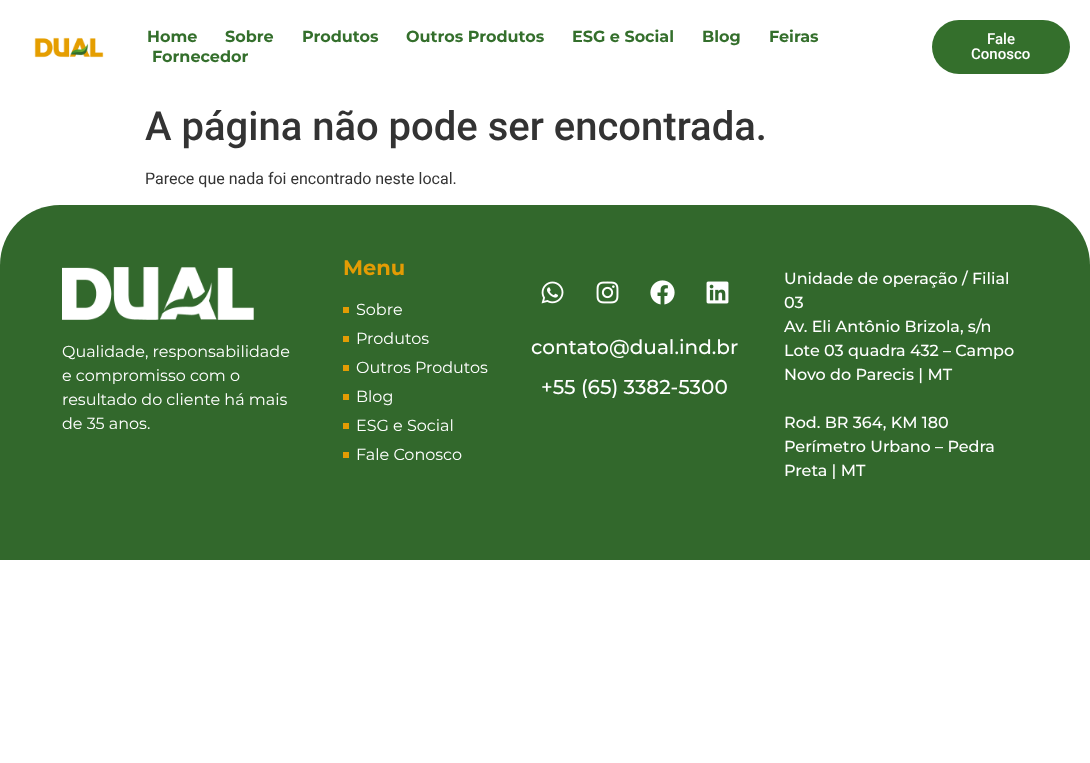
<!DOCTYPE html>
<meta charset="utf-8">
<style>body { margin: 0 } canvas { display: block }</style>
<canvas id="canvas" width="1090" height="763"></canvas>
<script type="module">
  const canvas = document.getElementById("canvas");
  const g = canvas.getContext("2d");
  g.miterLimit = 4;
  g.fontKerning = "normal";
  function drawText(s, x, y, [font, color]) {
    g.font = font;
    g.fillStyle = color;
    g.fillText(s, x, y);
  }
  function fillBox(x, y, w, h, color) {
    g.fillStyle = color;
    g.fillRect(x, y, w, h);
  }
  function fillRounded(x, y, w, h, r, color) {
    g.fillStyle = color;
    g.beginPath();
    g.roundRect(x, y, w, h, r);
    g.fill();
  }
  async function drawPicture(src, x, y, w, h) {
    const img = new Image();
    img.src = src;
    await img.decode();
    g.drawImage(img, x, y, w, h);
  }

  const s1 = ["bold 16px Montserrat", "#346F2C"];
  const s2 = ["500 15px Roboto", "#FFFFFF"];
  const s3 = ["500 40px Roboto", "#333333"];
  const s4 = ["16px Roboto", "#333333"];
  const s5 = ["16px Montserrat", "#FFFFFF"];
  const s6 = ["bold 21px Montserrat", "#E39C04"];
  const s7 = ["500 20px Montserrat", "#FFFFFF"];
  const s8 = ["500 16px Montserrat", "#FFFFFF"];

  fillBox(0, 0, 1090, 763, "#FFFFFF");
  await drawPicture("pic1.png", 34, 37, 70, 21);
  drawText("Home", 147, 42, s1);
  drawText("Sobre", 225, 42, s1);
  drawText("Produtos", 302, 42, s1);
  drawText("Outros Produtos", 406, 42, s1);
  drawText("ESG e Social", 572, 42, s1);
  drawText("Blog", 702, 42, s1);
  drawText("Feiras", 769, 42, s1);
  drawText("Fornecedor", 152, 62, s1);
  fillRounded(932, 20, 138, 54, 27, "#346F2C");
  drawText("Fale", 987, 44, s2);
  drawText("Conosco", 971, 59, s2);
  drawText("A página não pode ser encontrada.", 145, 140, s3);
  drawText("Parece que nada foi encontrado neste local.", 145, 184, s4);
  g.fillStyle = "#32682C";
  g.beginPath();
  g.roundRect(0, 205, 1090, 355, [60, 60, 0, 0]);
  g.fill();
  await drawPicture("pic2.png", 62, 267, 192, 53);
  drawText("Qualidade, responsabilidade", 62, 357, s5);
  drawText("e compromisso com o", 62, 381, s5);
  drawText("resultado do cliente há mais", 62, 405, s5);
  drawText("de 35 anos.", 62, 429, s5);
  drawText("Menu", 343, 275, s6);
  fillBox(343, 307, 6, 6, "#E39C04");
  drawText("Sobre", 356, 315, s5);
  fillBox(343, 336, 6, 6, "#E39C04");
  drawText("Produtos", 356, 344, s5);
  fillBox(343, 365, 6, 6, "#E39C04");
  drawText("Outros Produtos", 356, 373, s5);
  fillBox(343, 394, 6, 6, "#E39C04");
  drawText("Blog", 356, 402, s5);
  fillBox(343, 423, 6, 6, "#E39C04");
  drawText("ESG e Social", 356, 431, s5);
  fillBox(343, 452, 6, 6, "#E39C04");
  drawText("Fale Conosco", 356, 460, s5);
  await drawPicture("pic3.png", 541, 281, 23, 23);
  await drawPicture("pic4.png", 596, 281, 23, 23);
  await drawPicture("pic5.png", 650, 280, 25, 25);
  await drawPicture("pic6.png", 706, 281, 23, 23);
  drawText("contato@dual.ind.br", 531, 354, s7);
  drawText("+55 (65) 3382-5300", 541, 394, s7);
  drawText("Unidade de operação / Filial", 784, 284, s8);
  drawText("03", 784, 308, s8);
  drawText("Av. Eli Antônio Brizola, s/n", 784, 332, s8);
  drawText("Lote 03 quadra 432 – Campo", 784, 356, s8);
  drawText("Novo do Parecis | MT", 784, 380, s8);
  drawText("Rod. BR 364, KM 180", 784, 428, s8);
  drawText("Perímetro Urbano – Pedra", 784, 452, s8);
  drawText("Preta | MT", 784, 476, s8);
</script>
